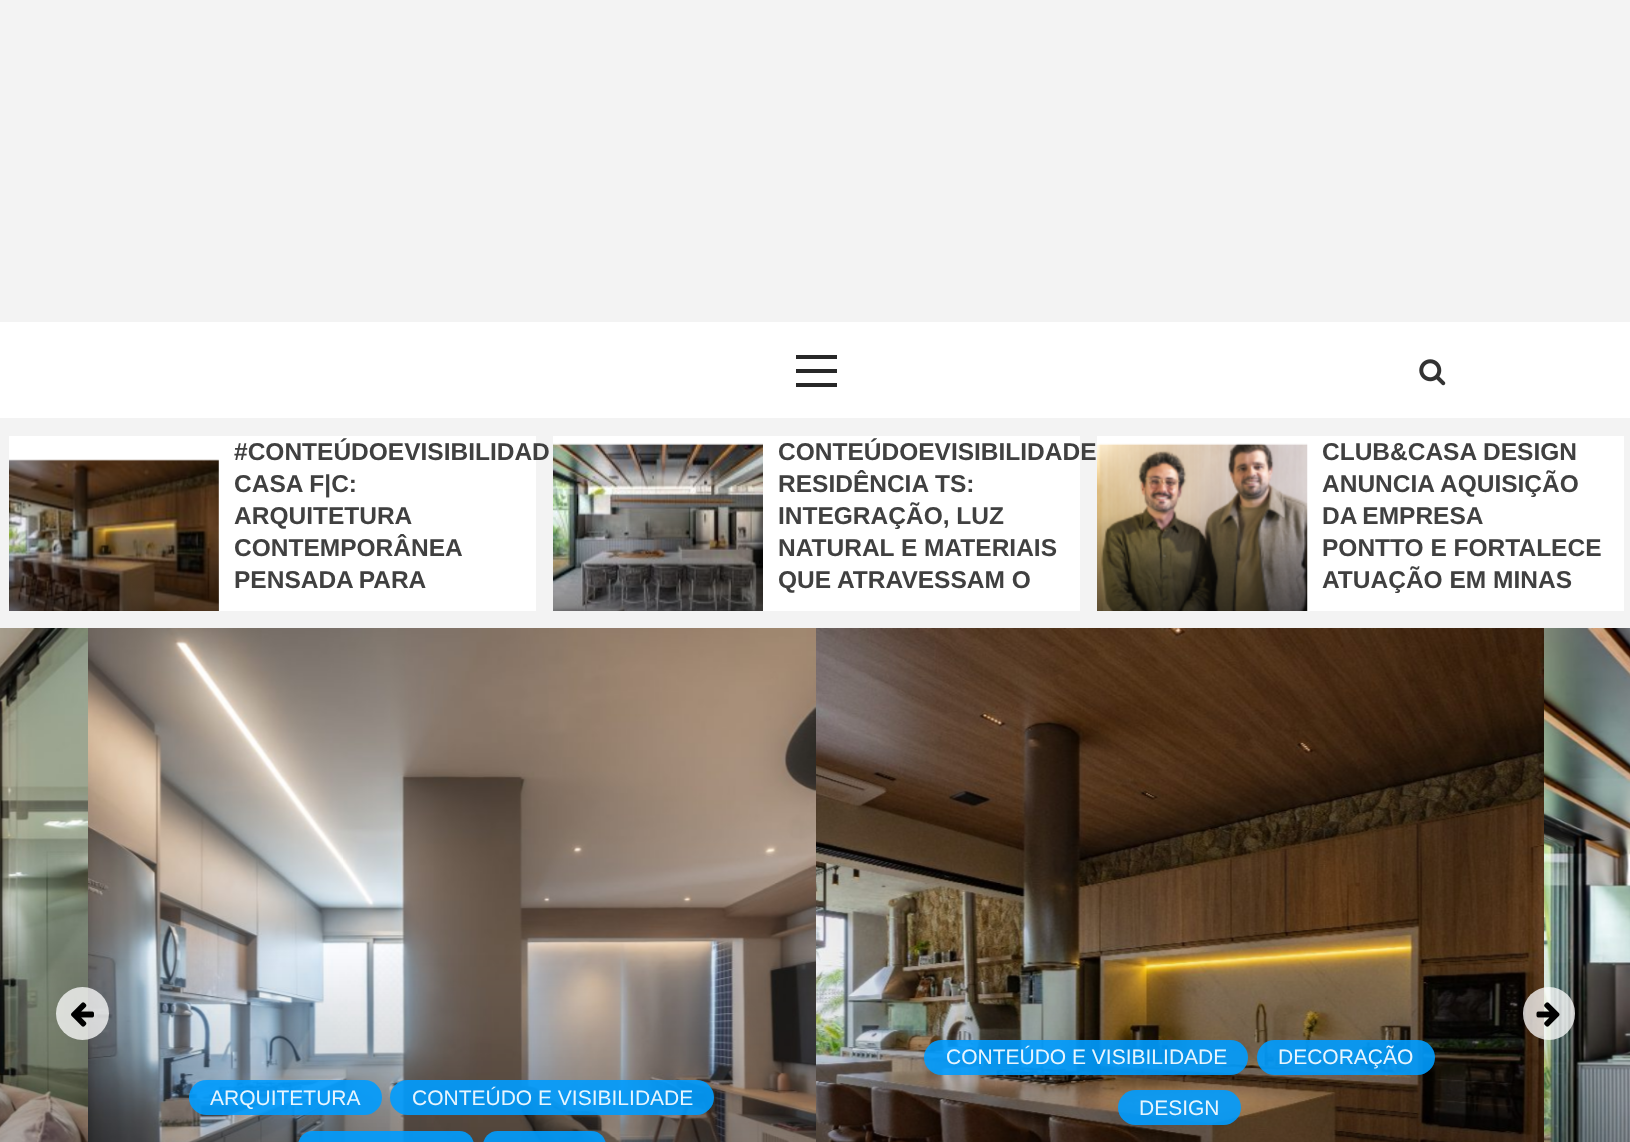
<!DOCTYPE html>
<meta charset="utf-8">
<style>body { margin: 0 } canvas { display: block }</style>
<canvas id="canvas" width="1630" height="1142"></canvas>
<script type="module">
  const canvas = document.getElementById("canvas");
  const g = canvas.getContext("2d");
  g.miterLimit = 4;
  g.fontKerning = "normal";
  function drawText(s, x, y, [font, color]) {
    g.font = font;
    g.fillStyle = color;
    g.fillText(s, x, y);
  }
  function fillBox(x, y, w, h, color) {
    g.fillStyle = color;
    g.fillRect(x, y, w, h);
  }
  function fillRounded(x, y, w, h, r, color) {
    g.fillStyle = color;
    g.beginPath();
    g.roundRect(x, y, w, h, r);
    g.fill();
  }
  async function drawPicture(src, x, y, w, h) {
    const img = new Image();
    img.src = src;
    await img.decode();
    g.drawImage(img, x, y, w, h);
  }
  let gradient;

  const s1 = ["bold 24.5px Liberation Sans", "#404040"];
  const s2 = ["21px Liberation Sans", "#E7F5FE"];

  fillBox(0, 0, 1630, 1142, "#F3F3F3");
  fillBox(0, 322, 1630, 96, "#FFFFFF");
  fillBox(796, 369, 41, 4, "#282828");
  fillBox(796, 355, 41, 4, "#282828");
  fillBox(796, 383, 41, 4, "#282828");
  await drawPicture("pic1.png", 1419, 359, 27, 27);
  fillBox(9, 436, 527, 175, "#FFFFFF");
  fillBox(9, 460, 210, 151, "#D7D7D7");
  await drawPicture("pic2.png", 9, 459, 210, 152);
  gradient = g.createLinearGradient(114, 460, 114, 635);
  gradient.addColorStop(0.4, "rgba(0, 0, 0, 0)");
  gradient.addColorStop(1, "rgba(0, 0, 0, 0.52)");
  g.fillStyle = gradient;
  g.fillRect(9, 534, 210, 77);
  drawText("#CONTEÚDOEVISIBILIDAD", 234, 460, s1);
  drawText("CASA F|C:", 234, 492, s1);
  drawText("ARQUITETURA", 234, 524, s1);
  drawText("CONTEMPORÂNEA", 234, 556, s1);
  g.wordSpacing = "-1px";
  drawText("PENSADA PARA", 234, 588, s1);
  fillBox(553, 436, 527, 175, "#FFFFFF");
  await drawPicture("pic3.png", 553, 443, 210, 168);
  g.wordSpacing = "0px";
  drawText("CONTEÚDOEVISIBILIDADE", 778, 460, s1);
  drawText("RESIDÊNCIA TS:", 778, 492, s1);
  drawText("INTEGRAÇÃO, LUZ", 778, 524, s1);
  drawText("NATURAL E MATERIAIS", 778, 556, s1);
  drawText("QUE ATRAVESSAM O", 778, 588, s1);
  fillBox(1097, 436, 527, 175, "#FFFFFF");
  await drawPicture("pic4.png", 1097, 443, 211, 168);
  drawText("CLUB&CASA DESIGN", 1322, 460, s1);
  drawText("ANUNCIA AQUISIÇÃO", 1322, 492, s1);
  g.wordSpacing = "-1px";
  drawText("DA EMPRESA", 1322, 524, s1);
  g.wordSpacing = "0px";
  drawText("PONTTO E FORTALECE", 1322, 556, s1);
  drawText("ATUAÇÃO EM MINAS", 1322, 588, s1);
  await drawPicture("pic7.png", 0, 628, 88, 514);
  await drawPicture("pic8.png", 88, 628, 728, 514);
  g.fillStyle = "rgba(255, 255, 255, 0.75)";
  g.beginPath();
  g.arc(82.5, 1013.5, 26.5, 0, Math.PI * 2);
  g.fill();
  await drawPicture("pic5.png", 71, 1002, 23, 25);
  await drawPicture("pic9.png", 816, 628, 728, 514);
  await drawPicture("pic10.png", 1544, 628, 86, 514);
  fillRounded(1523, 987, 52, 53, 26, "rgba(255, 255, 255, 0.75)");
  await drawPicture("pic6.png", 1536, 1002, 24, 25);
  fillRounded(189, 1080, 193, 35, 17.5, "rgba(0, 156, 255, 0.9)");
  drawText("ARQUITETURA", 210, 1105, s2);
  fillRounded(390, 1080, 324, 35, 17.5, "rgba(0, 156, 255, 0.9)");
  drawText("CONTEÚDO E VISIBILIDADE", 412, 1105, s2);
  fillRounded(298, 1131, 176, 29, 17.5, "rgba(0, 156, 255, 0.9)");
  fillRounded(483, 1131, 123, 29, 17.5, "rgba(0, 156, 255, 0.9)");
  fillRounded(924, 1040, 324, 35, 17.5, "rgba(0, 156, 255, 0.9)");
  drawText("CONTEÚDO E VISIBILIDADE", 946, 1064, s2);
  fillRounded(1257, 1040, 178, 35, 17.5, "rgba(0, 156, 255, 0.9)");
  drawText("DECORAÇÃO", 1278, 1064, s2);
  fillRounded(1118, 1090, 123, 35, 17.5, "rgba(0, 156, 255, 0.9)");
  drawText("DESIGN", 1139, 1115, s2);
</script>
